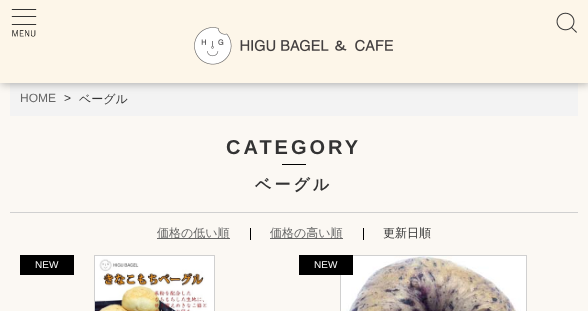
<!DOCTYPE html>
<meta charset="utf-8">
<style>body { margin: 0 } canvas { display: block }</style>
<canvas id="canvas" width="588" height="311"></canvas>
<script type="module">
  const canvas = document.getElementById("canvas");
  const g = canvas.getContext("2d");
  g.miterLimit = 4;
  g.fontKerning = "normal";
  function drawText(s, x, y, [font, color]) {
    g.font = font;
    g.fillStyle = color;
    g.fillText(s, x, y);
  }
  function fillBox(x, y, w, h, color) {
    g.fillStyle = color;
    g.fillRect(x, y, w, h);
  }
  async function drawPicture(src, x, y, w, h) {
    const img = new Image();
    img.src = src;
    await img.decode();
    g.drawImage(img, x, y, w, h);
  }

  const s1 = ["12px Liberation Sans", "#666666"];
  const s2 = ["12px Liberation Sans", "#333333"];
  const s3 = ["500 12px WenQuanYi Zen Hei", "#333333"];
  const s4 = ["bold 20px Liberation Sans", "#333333"];
  const s5 = ["bold 16px WenQuanYi Zen Hei", "#333333"];
  const s6 = ["500 12px WenQuanYi Zen Hei", "#666666"];
  const s7 = ["10px Liberation Sans", "#FCFCFC"];

  fillBox(0, 0, 588, 311, "#FBF8F3");
  fillBox(10, 83, 568, 33, "#F3F3F3");
  g.fillStyle = "rgba(0, 0, 0, 0.3)";
  g.filter = "blur(4px)";
  g.beginPath();
  g.rect(1, 1, 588, 83);
  g.fill();
  g.filter = "none";
  fillBox(0, 0, 588, 83, "#FDF6E9");
  await drawPicture("pic1.png", 11, 9, 26, 28);
  await drawPicture("pic2.png", 556, 12, 21, 21);
  await drawPicture("pic3.png", 194, 27, 199, 38);
  drawText("HOME", 20, 102, s1);
  drawText(">", 64, 102, s2);
  drawText("ベーグル", 79, 103, s3);
  g.letterSpacing = "3px";
  drawText("CATEGORY", 226, 154, s4);
  fillBox(282, 164, 24, 1, "#000000");
  drawText("ベーグル", 255, 190, s5);
  fillBox(10, 212, 568, 1, "#D0D0D0");
  fillBox(157, 238, 73, 1, "#666666");
  g.letterSpacing = "0px";
  drawText("価格の低い順", 157, 237, s6);
  fillBox(250, 228, 1, 12, "#000000");
  fillBox(270, 238, 73, 1, "#666666");
  drawText("価格の高い順", 270, 237, s6);
  fillBox(363, 228, 1, 12, "#000000");
  drawText("更新日順", 383, 237, s3);
  fillBox(20, 255, 54, 20, "#000000");
  drawText("NEW", 35, 268, s7);
  g.strokeStyle = "#D0D0D0";
  g.strokeRect(94.5, 255.5, 120, 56);
  await drawPicture("pic4.png", 95, 256, 119, 55);
  g.strokeRect(340.5, 255.5, 186, 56);
  await drawPicture("pic5.png", 341, 256, 185, 55);
  fillBox(299, 255, 54, 20, "#000000");
  drawText("NEW", 314, 268, s7);
</script>
